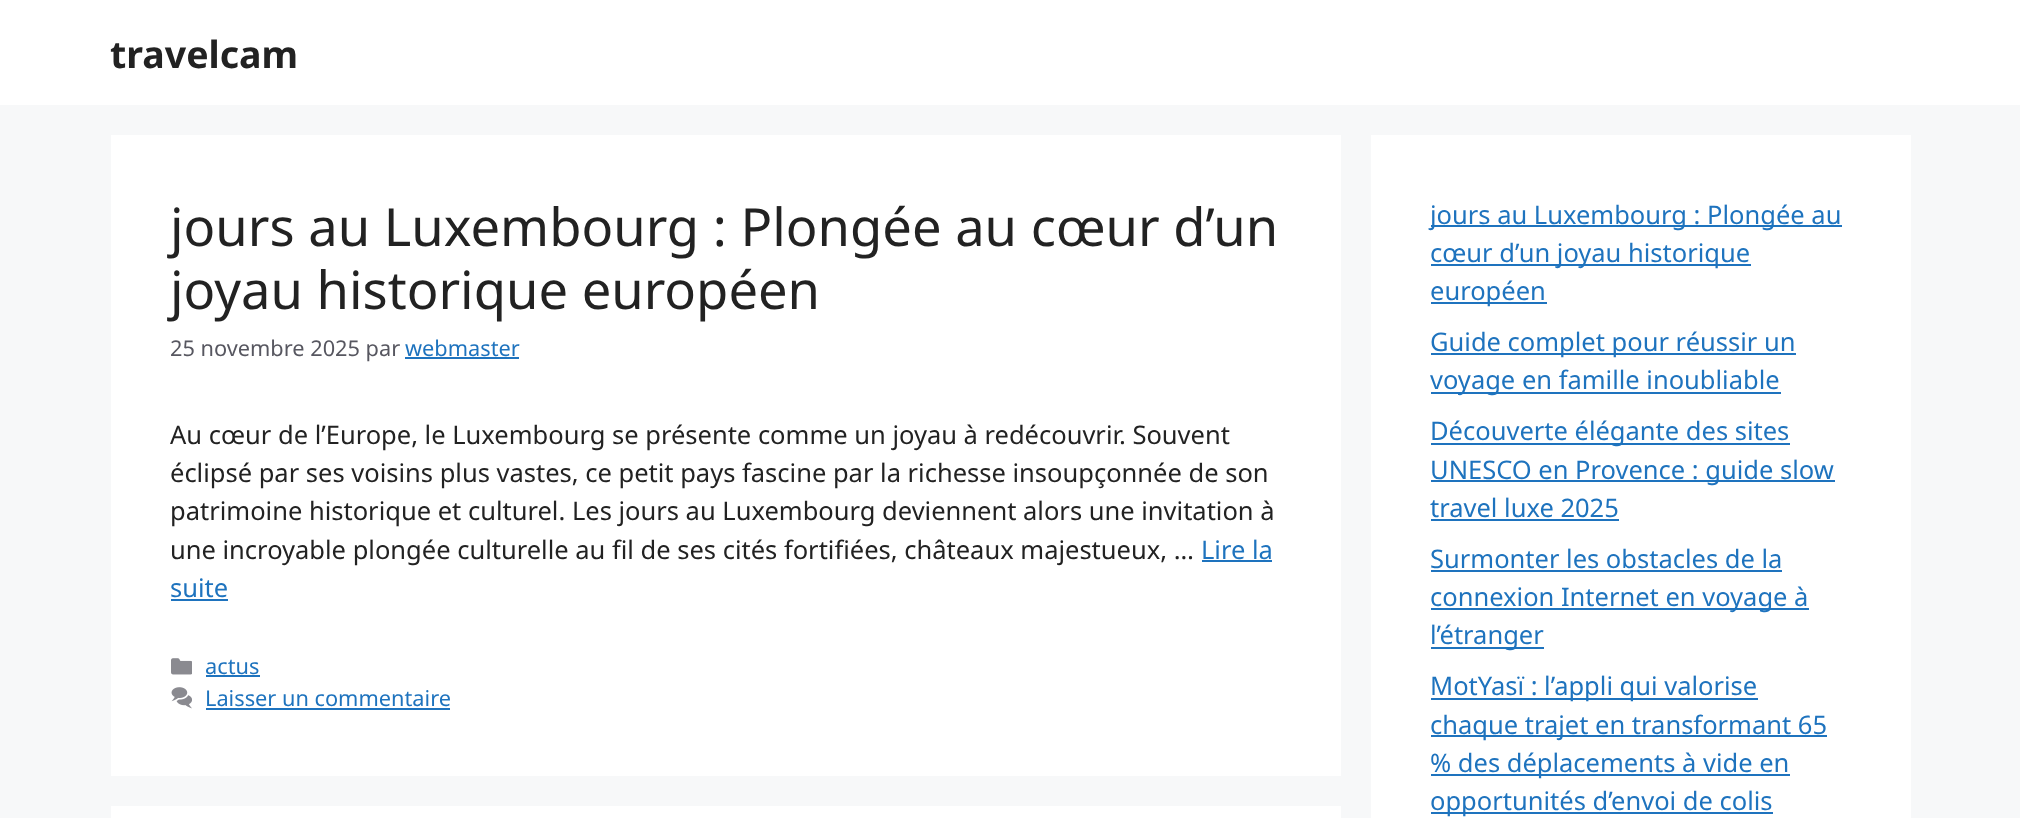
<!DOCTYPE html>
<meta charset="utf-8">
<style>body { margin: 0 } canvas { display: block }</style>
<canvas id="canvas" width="2020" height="818"></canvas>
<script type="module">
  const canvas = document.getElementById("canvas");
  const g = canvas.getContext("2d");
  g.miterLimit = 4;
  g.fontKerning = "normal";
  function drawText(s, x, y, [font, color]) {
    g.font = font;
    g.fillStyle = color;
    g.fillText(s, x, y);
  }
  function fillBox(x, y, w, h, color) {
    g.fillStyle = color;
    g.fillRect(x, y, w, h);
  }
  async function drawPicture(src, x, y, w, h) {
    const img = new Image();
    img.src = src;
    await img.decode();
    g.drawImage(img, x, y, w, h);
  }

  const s1 = ["bold 37.5px Noto Sans", "#222222"];
  const s2 = ["52.5px Noto Sans", "#222222"];
  const s3 = ["21.75px Noto Sans", "#575760"];
  const s4 = ["21.75px Noto Sans", "#1E73BE"];
  const s5 = ["25.5px Noto Sans", "#222222"];
  const s6 = ["25.5px Noto Sans", "#1E73BE"];

  fillBox(0, 0, 2020, 818, "#F7F8F9");
  fillBox(0, 0, 2020, 105, "#FFFFFF");
  drawText("travelcam", 110, 68, s1);
  fillBox(111, 135, 1230, 641, "#FFFFFF");
  drawText("jours au Luxembourg : Plongée au cœur d’un", 170, 246, s2);
  drawText("joyau historique européen", 170, 309, s2);
  drawText("25 novembre 2025 par", 170, 356, s3);
  drawText("webmaster", 405, 356, s4);
  fillBox(405, 357, 114, 2, "#1E73BE");
  drawText("Au cœur de l’Europe, le Luxembourg se présente comme un joyau à redécouvrir. Souvent", 170, 444, s5);
  drawText("éclipsé par ses voisins plus vastes, ce petit pays fascine par la richesse insoupçonnée de son", 170, 482, s5);
  drawText("patrimoine historique et culturel. Les jours au Luxembourg deviennent alors une invitation à", 170, 520, s5);
  drawText("une incroyable plongée culturelle au fil de ses cités fortifiées, châteaux majestueux, …", 170, 559, s5);
  drawText("Lire la", 1201, 559, s6);
  fillBox(1202, 560, 70, 2, "#1E73BE");
  drawText("suite", 170, 597, s6);
  fillBox(171, 599, 57, 2, "#1E73BE");
  await drawPicture("pic1.png", 171, 658, 21, 17);
  drawText("actus", 205, 674, s4);
  fillBox(206, 675, 54, 2, "#1E73BE");
  await drawPicture("pic2.png", 171, 687, 21, 22);
  drawText("Laisser un commentaire", 205, 706, s4);
  fillBox(206, 708, 244, 2, "#1E73BE");
  fillBox(111, 806, 1230, 12, "#FFFFFF");
  fillBox(1371, 135, 540, 683, "#FFFFFF");
  fillBox(1431, 225, 411, 2, "#1E73BE");
  drawText("jours au Luxembourg : Plongée au", 1430, 224, s6);
  fillBox(1431, 264, 320, 2, "#1E73BE");
  drawText("cœur d’un joyau historique", 1430, 262, s6);
  fillBox(1431, 302, 116, 2, "#1E73BE");
  drawText("européen", 1430, 300, s6);
  fillBox(1431, 353, 365, 2, "#1E73BE");
  drawText("Guide complet pour réussir un", 1430, 351, s6);
  fillBox(1431, 392, 350, 2, "#1E73BE");
  drawText("voyage en famille inoubliable", 1430, 389, s6);
  fillBox(1431, 443, 359, 2, "#1E73BE");
  drawText("Découverte élégante des sites", 1430, 440, s6);
  fillBox(1431, 480, 404, 2, "#1E73BE");
  drawText("UNESCO en Provence : guide slow", 1430, 479, s6);
  drawText("travel luxe 2025", 1430, 517, s6);
  fillBox(1431, 519, 188, 2, "#1E73BE");
  drawText("Surmonter les obstacles de la", 1430, 568, s6);
  fillBox(1431, 570, 351, 2, "#1E73BE");
  fillBox(1431, 608, 378, 2, "#1E73BE");
  drawText("connexion Internet en voyage à", 1430, 606, s6);
  fillBox(1431, 647, 113, 2, "#1E73BE");
  drawText("l’étranger", 1430, 644, s6);
  fillBox(1431, 698, 327, 2, "#1E73BE");
  drawText("MotYasï : l’appli qui valorise", 1430, 695, s6);
  fillBox(1431, 735, 396, 2, "#1E73BE");
  drawText("chaque trajet en transformant 65", 1430, 734, s6);
  fillBox(1431, 774, 359, 2, "#1E73BE");
  drawText("% des déplacements à vide en", 1430, 772, s6);
  fillBox(1431, 812, 342, 2, "#1E73BE");
  drawText("opportunités d’envoi de colis", 1430, 810, s6);
</script>
